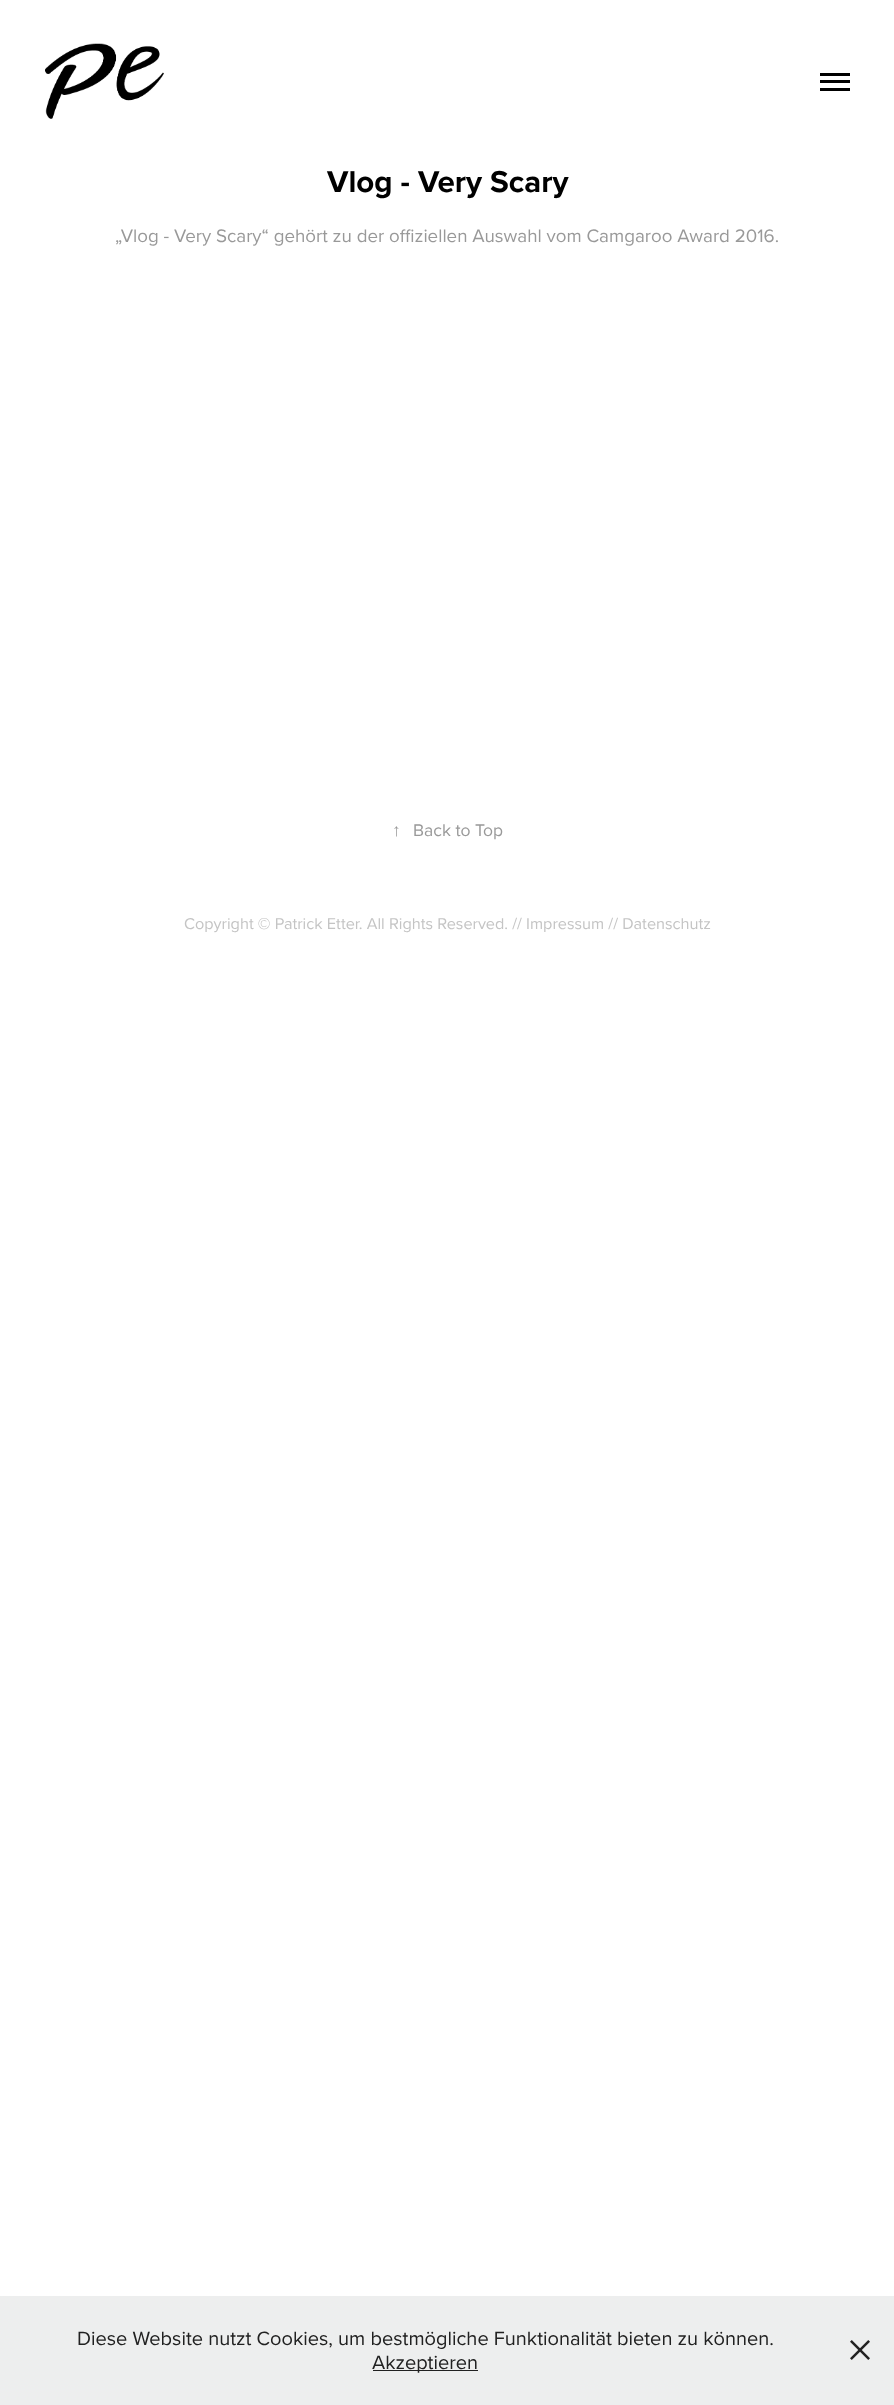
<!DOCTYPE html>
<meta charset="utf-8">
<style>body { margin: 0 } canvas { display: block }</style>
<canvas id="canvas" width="894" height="2405"></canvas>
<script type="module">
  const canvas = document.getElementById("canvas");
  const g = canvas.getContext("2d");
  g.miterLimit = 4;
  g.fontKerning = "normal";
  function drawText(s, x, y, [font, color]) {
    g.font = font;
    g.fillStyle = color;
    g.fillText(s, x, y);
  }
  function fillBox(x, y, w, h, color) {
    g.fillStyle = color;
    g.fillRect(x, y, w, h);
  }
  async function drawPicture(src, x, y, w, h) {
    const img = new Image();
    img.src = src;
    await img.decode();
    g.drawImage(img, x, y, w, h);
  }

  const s1 = ["bold 31.25px Proxima Nova", "#000000"];
  const s2 = ["18.75px Proxima Nova", "#999999"];
  const s3 = ["17.5px Liberation Serif", "#999999"];
  const s4 = ["17.5px Proxima Nova", "#999999"];
  const s5 = ["16.25px Proxima Nova", "#C4C4C4"];
  const s6 = ["20px Proxima Nova", "#212121"];

  fillBox(0, 0, 894, 2405, "#FFFFFF");
  await drawPicture("pic1.png", 45, 43, 119, 76);
  fillBox(820, 73, 30, 3, "#000000");
  fillBox(820, 80, 30, 3, "#000000");
  fillBox(820, 88, 30, 3, "#000000");
  drawText("Vlog - Very Scary", 327, 192, s1);
  drawText("„Vlog - Very Scary“ gehört zu der offiziellen Auswahl vom Camgaroo Award 2016.", 115, 242, s2);
  drawText("↑", 392, 836, s3);
  drawText("Back to Top", 413, 836, s4);
  drawText("Copyright © Patrick Etter. All Rights Reserved. // Impressum // Datenschutz", 184, 929, s5);
  fillBox(0, 2296, 894, 109, "#EDEEEE");
  drawText("Diese Website nutzt Cookies, um bestmögliche Funktionalität bieten zu können.", 77, 2345, s6);
  fillBox(373, 2370, 105, 1, "#212121");
  drawText("Akzeptieren", 372, 2369, s6);
  await drawPicture("pic2.png", 850, 2340, 20, 20);
</script>
